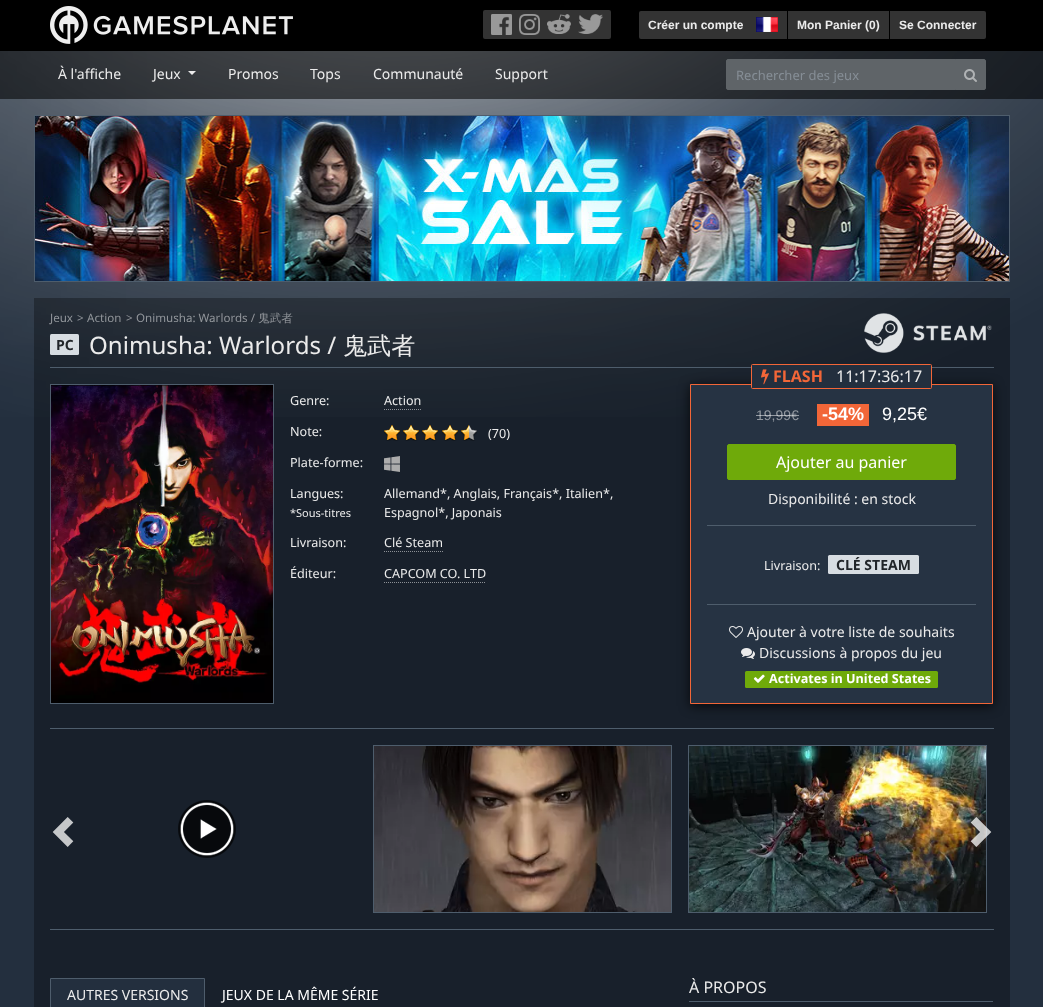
<!DOCTYPE html>
<meta charset="utf-8">
<style>body { margin: 0 } canvas { display: block }</style>
<canvas id="canvas" width="1043" height="1007"></canvas>
<script type="module">
  const canvas = document.getElementById("canvas");
  const g = canvas.getContext("2d");
  g.miterLimit = 4;
  g.fontKerning = "normal";
  function drawText(s, x, y, [font, color]) {
    g.font = font;
    g.fillStyle = color;
    g.fillText(s, x, y);
  }
  function fillBox(x, y, w, h, color) {
    g.fillStyle = color;
    g.fillRect(x, y, w, h);
  }
  function fillRounded(x, y, w, h, r, color) {
    g.fillStyle = color;
    g.beginPath();
    g.roundRect(x, y, w, h, r);
    g.fill();
  }
  async function drawPicture(src, x, y, w, h) {
    const img = new Image();
    img.src = src;
    await img.decode();
    g.drawImage(img, x, y, w, h);
  }

  const s1 = ["bold 12px Liberation Sans", "#EBEBEB"];
  const s2 = ["14px Noto Sans", "#EBEBEB"];
  const s3 = ["13px Noto Sans", "#868E96"];
  const s4 = ["11.6px Noto Sans", "#91959A"];
  const s5 = ["500 11.6px WenQuanYi Zen Hei", "#91959A"];
  const s6 = ["bold 14px Noto Sans", "#212529"];
  const s7 = ["24.1px Noto Sans", "#EBEBEB"];
  const s8 = ["500 24.1px WenQuanYi Zen Hei", "#EBEBEB"];
  const s9 = ["12.6px Noto Sans", "#EBEBEB"];
  const s10 = ["11px Noto Sans", "#EBEBEB"];
  const s11 = ["bold 16px Noto Sans", "#F26638"];
  const s12 = ["16px Noto Sans", "#EBEBEB"];
  const s13 = ["14px Liberation Sans", "#9399A1"];
  const s14 = ["bold 18px Liberation Sans", "#FFFFFF"];
  const s15 = ["18px Liberation Sans", "#FFFFFF"];
  const s16 = ["16px Noto Sans", "#FFFFFF"];
  const s17 = ["bold 12.6px Noto Sans", "#FFFFFF"];
  const s18 = ["14px Noto Sans", "#FFFFFF"];

  fillBox(0, 0, 1043, 1007, "#232F3E");
  await drawPicture("pic1.png", 0, 51, 1043, 366);
  fillBox(0, 0, 1043, 51, "#000000");
  await drawPicture("pic2.png", 50, 6, 243, 38);
  g.fillStyle = "#333333";
  g.beginPath();
  g.roundRect(483, 10, 33, 29, [2, 0, 0, 2]);
  g.fill();
  await drawPicture("pic3.png", 491, 14, 21, 21);
  fillBox(516, 10, 58, 29, "#333333");
  await drawPicture("pic4.png", 519, 14, 21, 21);
  g.beginPath();
  g.roundRect(574, 10, 37, 29, [0, 2, 2, 0]);
  g.fill();
  await drawPicture("pic5.png", 578, 14, 25, 20);
  await drawPicture("pic6.png", 547, 14, 24, 20);
  g.beginPath();
  g.roundRect(639, 11, 113, 28, [2, 0, 0, 2]);
  g.fill();
  drawText("Créer un compte", 648, 29, s1);
  fillBox(752, 11, 35, 28, "#333333");
  await drawPicture("pic7.png", 756, 17, 22, 15);
  fillBox(788, 11, 101, 28, "#333333");
  drawText("Mon Panier (0)", 797, 29, s1);
  g.fillStyle = "#333333";
  g.beginPath();
  g.roundRect(890, 11, 96, 28, [0, 2, 2, 0]);
  g.fill();
  drawText("Se Connecter", 899, 29, s1);
  fillBox(0, 51, 1043, 48, "rgba(0, 0, 0, 0.55)");
  drawText("À l'affiche", 58, 79, s2);
  drawText("Jeux", 153, 79, s2);
  g.beginPath();
  g.moveTo(188, 71);
  g.lineTo(196, 71);
  g.lineTo(192, 75);
  g.closePath();
  g.fill();
  drawText("Promos", 228, 79, s2);
  drawText("Tops", 310, 79, s2);
  drawText("Communauté", 373, 79, s2);
  drawText("Support", 495, 79, s2);
  g.fillStyle = "#5F6468";
  g.beginPath();
  g.roundRect(726.5, 59.5, 229, 30, [1.5, 0, 0, 1.5]);
  g.fill();
  g.strokeStyle = "#5F6468";
  g.stroke();
  drawText("Rechercher des jeux", 736, 80, s3);
  g.fillStyle = "#5F6468";
  g.beginPath();
  g.roundRect(955.5, 59.5, 30, 30, [0, 1.5, 1.5, 0]);
  g.fill();
  g.stroke();
  await drawPicture("pic8.png", 964, 69, 13, 13);
  g.strokeStyle = "#4E5D6C";
  g.strokeRect(34.5, 115.5, 975, 166);
  await drawPicture("pic9.png", 35, 116, 974, 165);
  fillBox(34, 298, 976, 709, "rgba(0, 0, 0, 0.3)");
  drawText("Jeux", 50, 322, s4);
  drawText(">", 77, 322, s4);
  drawText("Action", 87, 322, s4);
  drawText(">", 126, 322, s4);
  drawText("Onimusha: Warlords /", 136, 322, s4);
  drawText("鬼武者", 258, 322, s5);
  fillRounded(50, 334, 29, 21, 1.5, "#D7DDE2");
  drawText("PC", 56, 350, s6);
  fillBox(50, 367, 944, 1, "#4E5D6C");
  drawText("Onimusha: Warlords /", 89, 354, s7);
  drawText("鬼武者", 343, 354, s8);
  await drawPicture("pic10.png", 864, 313, 128, 40);
  g.strokeRect(50.5, 384.5, 223, 319);
  await drawPicture("pic11.png", 51, 385, 222, 318);
  drawText("Genre:", 290, 405, s9);
  drawText("Action", 384, 405, s9);
  g.beginPath();
  g.moveTo(384, 409.5);
  g.lineTo(421, 409.5);
  g.strokeStyle = "#8E9297";
  g.setLineDash([1, 1]);
  g.stroke();
  drawText("Note:", 290, 436, s9);
  await drawPicture("pic12.png", 384, 425, 16, 16);
  await drawPicture("pic13.png", 403, 425, 16, 16);
  await drawPicture("pic14.png", 422, 425, 16, 16);
  await drawPicture("pic15.png", 442, 425, 16, 16);
  await drawPicture("pic16.png", 461, 425, 16, 16);
  drawText("(70)", 488, 438, s9);
  drawText("Plate-forme:", 290, 467, s9);
  await drawPicture("pic17.png", 384, 456, 16, 16);
  drawText("Langues:", 290, 498, s9);
  drawText("*Sous-titres", 290, 517, s10);
  drawText("Allemand*, Anglais, Français*, Italien*,", 384, 498, s9);
  drawText("Espagnol*, Japonais", 384, 517, s9);
  drawText("Livraison:", 290, 547, s9);
  drawText("Clé Steam", 384, 547, s9);
  g.beginPath();
  g.moveTo(384, 551.5);
  g.lineTo(443, 551.5);
  g.strokeStyle = "#8C9095";
  g.stroke();
  drawText("Éditeur:", 290, 578, s9);
  drawText("CAPCOM CO. LTD", 384, 578, s9);
  g.beginPath();
  g.moveTo(384, 582.5);
  g.lineTo(486, 582.5);
  g.stroke();
  g.fillStyle = "rgba(0, 0, 0, 0.75)";
  g.filter = "blur(6px)";
  g.beginPath();
  g.rect(690, 386, 303, 320);
  g.fill();
  g.filter = "none";
  g.fillStyle = "#263343";
  g.beginPath();
  g.rect(690.5, 384.5, 302, 319);
  g.fill();
  g.strokeStyle = "#F26638";
  g.setLineDash([]);
  g.stroke();
  g.fillStyle = "#232F3E";
  g.beginPath();
  g.roundRect(751.5, 364.5, 180, 24, 1);
  g.fill();
  g.stroke();
  await drawPicture("pic18.png", 761, 369, 8, 16);
  drawText("FLASH", 773, 382, s11);
  drawText("11:17:36:17", 836, 382, s12);
  drawText("19,99€", 756, 420, s13);
  fillBox(756, 415, 43, 1, "rgba(255, 255, 255, 0.5)");
  fillBox(817, 404, 52, 22, "#F26638");
  drawText("-54%", 822, 420, s14);
  drawText("9,25€", 882, 420, s15);
  g.fillStyle = "#6FAA0A";
  g.beginPath();
  g.roundRect(727.5, 444.5, 228, 35, 1.5);
  g.fill();
  g.strokeStyle = "#6FAA0A";
  g.stroke();
  drawText("Ajouter au panier", 776, 468, s16);
  drawText("Disponibilité : en stock", 768, 504, s2);
  fillBox(707, 525, 269, 1, "#4E5D6C");
  drawText("Livraison:", 764, 570, s9);
  fillRounded(828, 555, 91, 19, 1.5, "#D7DDE2");
  drawText("CLÉ STEAM", 836, 570, s6);
  fillBox(707, 604, 269, 1, "#4E5D6C");
  await drawPicture("pic19.png", 729, 626, 14, 12);
  drawText("Ajouter à votre liste de souhaits", 747, 637, s2);
  await drawPicture("pic20.png", 741, 648, 14, 11);
  drawText("Discussions à propos du jeu", 759, 658, s2);
  fillRounded(745, 671, 193, 17, 1.5, "#6FAA0A");
  await drawPicture("pic21.png", 753, 674, 12, 9);
  drawText("Activates in United States", 769, 683, s17);
  fillBox(50, 728, 944, 1, "#4E5D6C");
  fillBox(50, 929, 944, 1, "#4E5D6C");
  await drawPicture("pic22.png", 52, 817, 22, 30);
  await drawPicture("pic23.png", 178, 800, 58, 58);
  g.strokeStyle = "#4E5D6C";
  g.strokeRect(373.5, 745.5, 298, 167);
  await drawPicture("pic24.png", 374, 746, 297, 166);
  g.strokeRect(688.5, 745.5, 298, 167);
  await drawPicture("pic25.png", 689, 746, 297, 166);
  await drawPicture("pic26.png", 970, 817, 22, 30);
  g.fillStyle = "#232F3E";
  g.beginPath();
  g.rect(50.5, 978.5, 154, 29);
  g.fill();
  g.stroke();
  drawText("AUTRES VERSIONS", 67, 1000, s2);
  drawText("JEUX DE LA MÊME SÉRIE", 222, 1000, s18);
  fillBox(689, 1001, 304, 1, "#4E5D6C");
  drawText("À PROPOS", 689, 993, s12);
</script>
